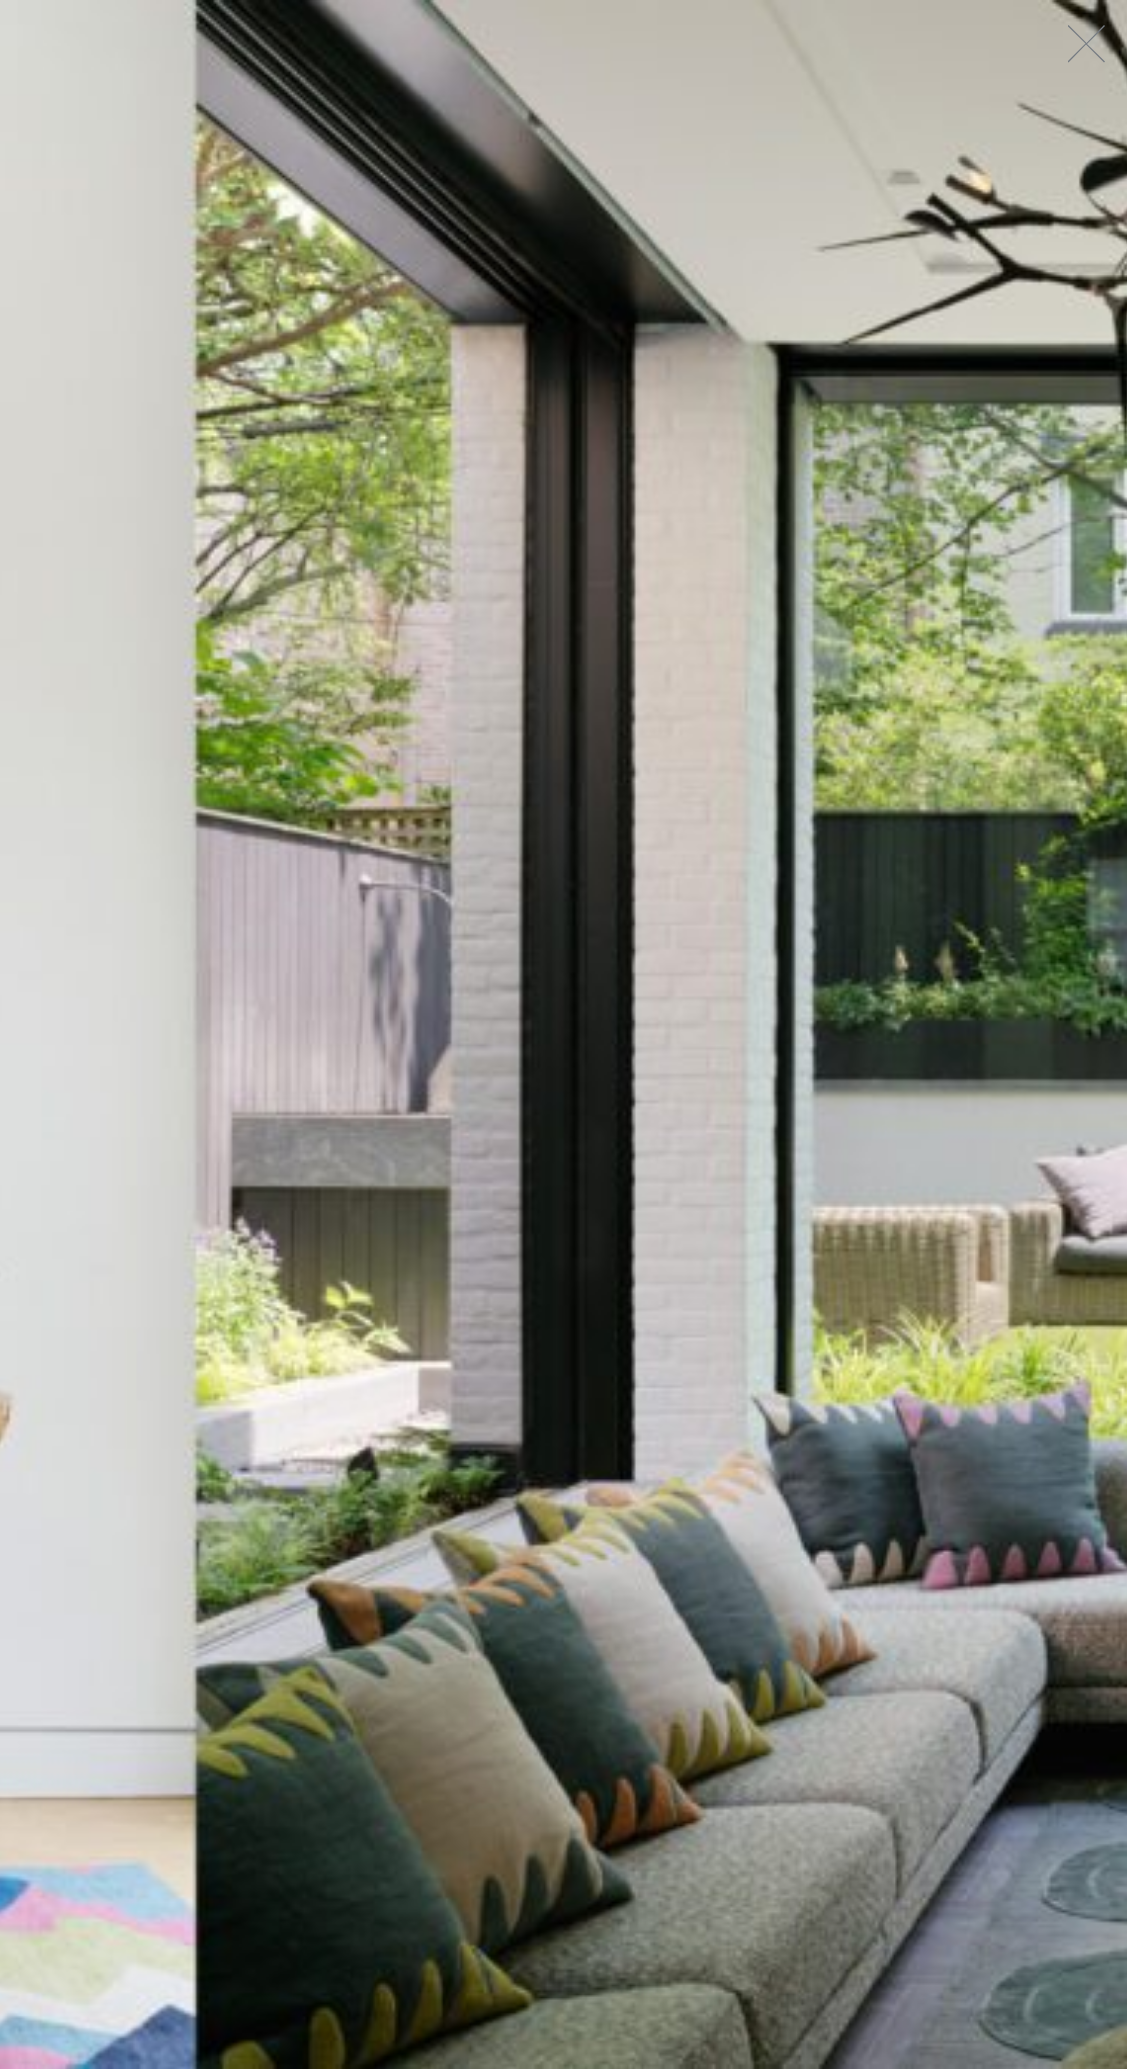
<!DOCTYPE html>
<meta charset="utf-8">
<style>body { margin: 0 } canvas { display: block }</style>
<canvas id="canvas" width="1127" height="2069"></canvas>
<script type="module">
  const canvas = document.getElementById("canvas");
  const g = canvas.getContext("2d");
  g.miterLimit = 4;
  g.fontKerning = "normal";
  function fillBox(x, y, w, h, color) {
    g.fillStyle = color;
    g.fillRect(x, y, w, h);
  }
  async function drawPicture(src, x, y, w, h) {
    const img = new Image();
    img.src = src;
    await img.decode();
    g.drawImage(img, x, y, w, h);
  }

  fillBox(0, 0, 1127, 2069, "#FFFFFF");
  await drawPicture("pic1.png", 0, 0, 1127, 2069);
  g.save();
  g.beginPath();
  g.rect(1068, 25, 37, 38);
  g.clip();
  g.fillStyle = "#757B82";
  g.beginPath();
  g.moveTo(1105, 26);
  g.lineTo(1104, 25);
  g.lineTo(1086.5, 43);
  g.lineTo(1068.5, 25);
  g.lineTo(1067.5, 26);
  g.lineTo(1085.5, 43.5);
  g.lineTo(1067.5, 61.5);
  g.lineTo(1068.5, 62.5);
  g.lineTo(1086, 44.5);
  g.lineTo(1104, 62.5);
  g.lineTo(1105, 61.5);
  g.lineTo(1087, 44);
  g.closePath();
  g.fill();
  g.restore();
</script>
